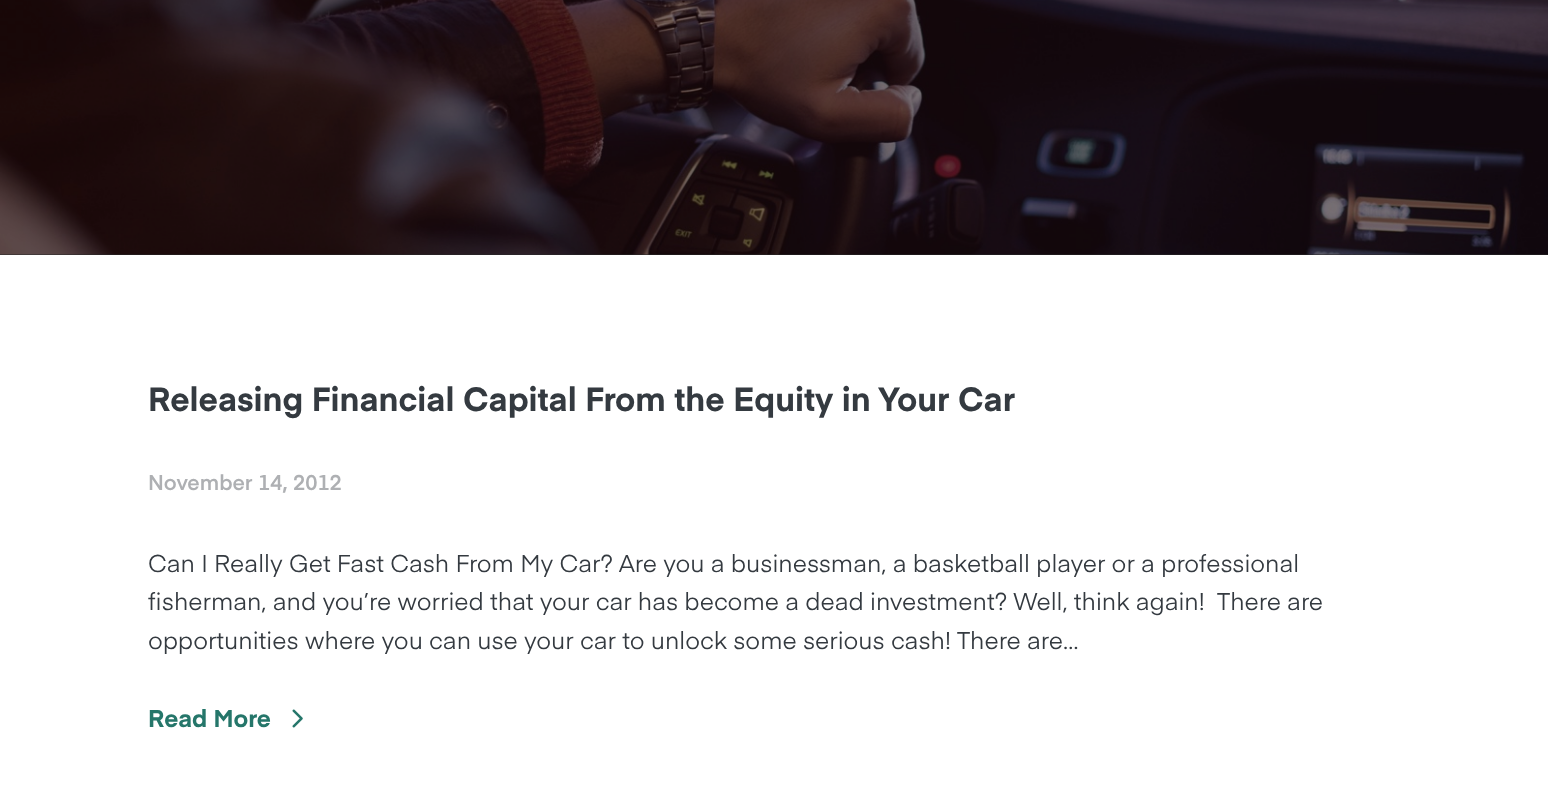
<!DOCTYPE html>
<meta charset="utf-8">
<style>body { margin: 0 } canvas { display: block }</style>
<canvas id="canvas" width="1548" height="804"></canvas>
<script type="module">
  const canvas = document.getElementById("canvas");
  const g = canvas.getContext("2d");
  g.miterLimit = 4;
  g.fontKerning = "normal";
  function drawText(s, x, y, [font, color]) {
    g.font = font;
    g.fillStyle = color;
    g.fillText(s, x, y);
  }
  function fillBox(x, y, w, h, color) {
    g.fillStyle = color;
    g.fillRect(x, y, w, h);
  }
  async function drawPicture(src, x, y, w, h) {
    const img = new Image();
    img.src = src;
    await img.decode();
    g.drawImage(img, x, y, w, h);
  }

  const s1 = ["bold 33px 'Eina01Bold'", "#343A40"];
  const s2 = ["600 21px 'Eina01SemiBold'", "#AEB0B3"];
  const s3 = ["24px 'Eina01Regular'", "#343A40"];
  const s4 = ["bold 24px 'Eina01Bold'", "#25766A"];

  fillBox(0, 0, 1548, 804, "#FFFFFF");
  fillBox(0, 254, 1548, 1, "#282828");
  await drawPicture("pic1.png", 0, 0, 1548, 255);
  drawText("Releasing Financial Capital From the Equity in Your Car", 148, 411, s1);
  drawText("November 14, 2012", 148, 490, s2);
  drawText("Can I Really Get Fast Cash From My Car? Are you a businessman, a basketball player or a professional", 148, 572, s3);
  drawText("fisherman, and you’re worried that your car has become a dead investment? Well, think again!  There are", 148, 610, s3);
  drawText("opportunities where you can use your car to unlock some serious cash! There are…", 148, 649, s3);
  drawText("Read More", 148, 727, s4);
  await drawPicture("pic2.png", 292, 709, 11, 19);
</script>
